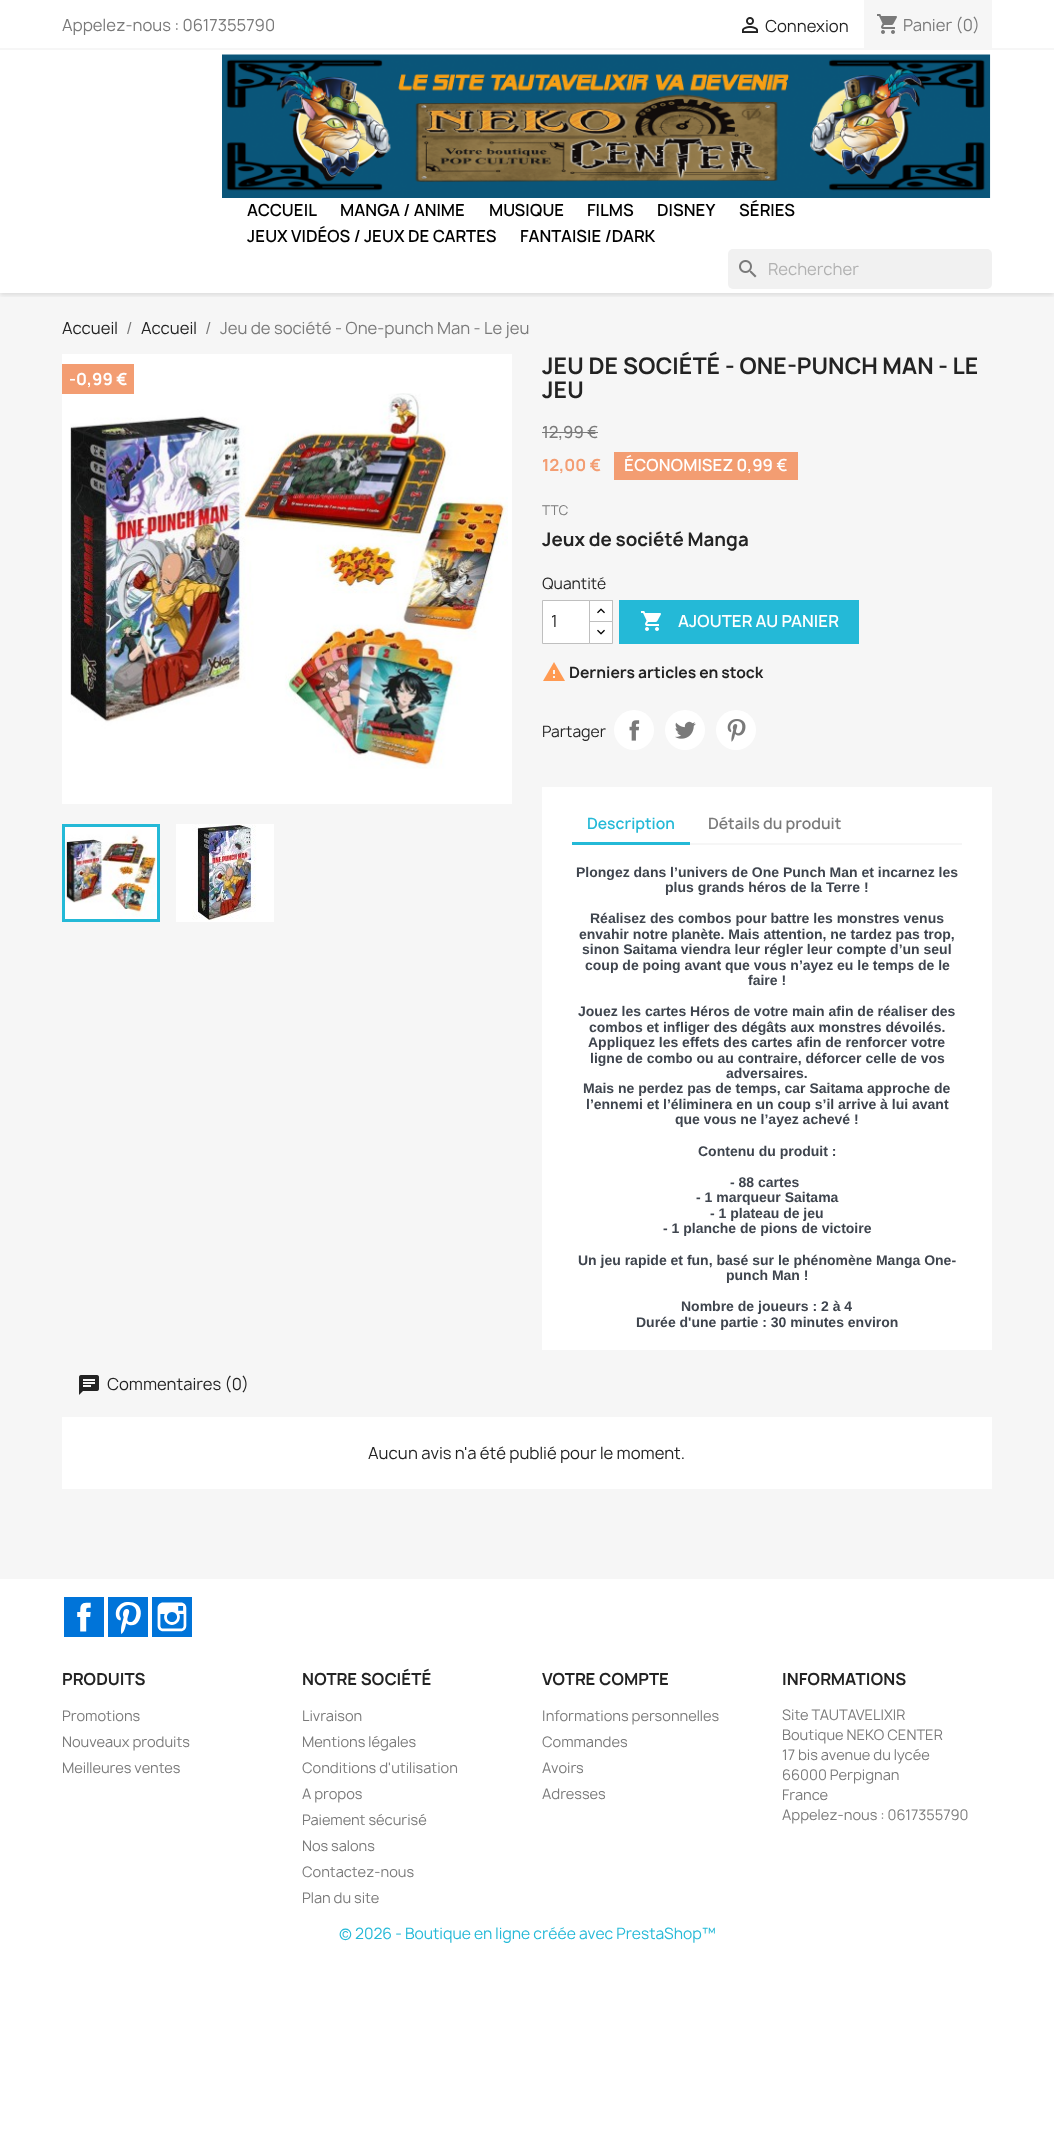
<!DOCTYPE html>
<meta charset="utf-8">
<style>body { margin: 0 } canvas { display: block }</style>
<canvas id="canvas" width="1054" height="2134"></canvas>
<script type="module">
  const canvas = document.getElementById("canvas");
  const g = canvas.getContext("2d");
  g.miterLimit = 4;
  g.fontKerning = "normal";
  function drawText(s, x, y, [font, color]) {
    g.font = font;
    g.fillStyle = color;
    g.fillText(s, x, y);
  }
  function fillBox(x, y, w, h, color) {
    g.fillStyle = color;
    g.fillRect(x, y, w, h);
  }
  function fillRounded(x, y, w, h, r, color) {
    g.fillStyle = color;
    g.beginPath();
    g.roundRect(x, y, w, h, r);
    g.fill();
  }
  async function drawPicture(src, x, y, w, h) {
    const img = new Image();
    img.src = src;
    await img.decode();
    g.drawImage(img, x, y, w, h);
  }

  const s1 = ["16px Manrope", "#7A7A7A"];
  const s2 = ["16px Manrope", "#232323"];
  const s3 = ["600 16px Manrope", "#000000"];
  const s4 = ["16px Manrope", "#B1B1B1"];
  const s5 = ["bold 16px Manrope", "#FFFFFF"];
  const s6 = ["bold 22px Manrope", "#232323"];
  const s7 = ["500 16px Manrope", "#7A7A7A"];
  const s8 = ["bold 16px Manrope", "#F39D72"];
  const s9 = ["600 16px Manrope", "#FFFFFF"];
  const s10 = ["13px Manrope", "#7A7A7A"];
  const s11 = ["bold 18px Manrope", "#232323"];
  const s12 = ["15px Manrope", "#232323"];
  const s13 = ["bold 15px Manrope", "#232323"];
  const s14 = ["600 15px Manrope", "#24B9D7"];
  const s15 = ["600 15px Manrope", "#7A7A7A"];
  const s16 = ["bold 14px Liberation Sans", "#3F454E"];
  const s17 = ["bold 16px Manrope", "#232323"];
  const s18 = ["14px Manrope", "#7A7A7A"];
  const s19 = ["15px Manrope", "#24B9D7"];

  fillBox(0, 0, 1054, 2134, "#FFFFFF");
  fillBox(0, 293, 1054, 1286, "#F6F6F6");
  g.save();
  g.beginPath();
  g.rect(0, 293, 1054, 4);
  g.clip();
  g.fillStyle = "rgba(0, 0, 0, 0.11)";
  g.filter = "blur(2.5px)";
  g.beginPath();
  g.rect(0, 2, 1054, 293);
  g.fill();
  g.filter = "none";
  g.restore();
  fillBox(0, 48, 1054, 2, "#F6F6F6");
  drawText("Appelez-nous : 0617355790", 62, 31, s1);
  await drawPicture("pic1.png", 742, 17, 16, 16);
  drawText("Connexion", 765, 32, s2);
  fillBox(864, 0, 128, 48, "#F6F6F6");
  await drawPicture("pic2.png", 877, 14, 20, 20);
  drawText("Panier (0)", 903, 31, s1);
  await drawPicture("pic3.png", 222, 54, 769, 144);
  drawText("ACCUEIL", 247, 216, s3);
  drawText("MANGA / ANIME", 340, 216, s3);
  drawText("MUSIQUE", 489, 216, s3);
  drawText("FILMS", 587, 216, s3);
  drawText("DISNEY", 657, 216, s3);
  drawText("SÉRIES", 739, 216, s3);
  drawText("JEUX VIDÉOS / JEUX DE CARTES", 247, 242, s3);
  drawText("FANTAISIE /DARK", 520, 242, s3);
  fillRounded(728, 249, 264, 40, 5, "#F1F1F1");
  await drawPicture("pic4.png", 739, 260, 18, 18);
  drawText("Rechercher", 768, 275, s4);
  drawText("Accueil", 62, 334, s2);
  drawText("/", 126, 334, s1);
  drawText("Accueil", 141, 334, s2);
  drawText("/", 205, 334, s1);
  drawText("Jeu de société - One-punch Man - Le jeu", 220, 334, s1);
  fillBox(62, 354, 450, 450, "#FFFFFF");
  await drawPicture("pic5.png", 70, 393, 438, 376);
  g.strokeStyle = "#24B9D7";
  g.lineWidth = 3;
  g.strokeRect(63.5, 825.5, 95, 95);
  await drawPicture("pic6.png", 176, 824, 98, 98);
  await drawPicture("pic7.png", 65, 827, 92, 92);
  fillBox(62, 364, 72, 30, "#F39D72");
  drawText("-0,99 €", 69, 385, s5);
  drawText("JEU DE SOCIÉTÉ - ONE-PUNCH MAN - LE", 542, 374, s6);
  drawText("JEU", 542, 398, s6);
  drawText("12,99 €", 542, 438, s7);
  fillBox(542, 432, 56, 1, "#7A7A7A");
  drawText("12,00 €", 542, 471, s8);
  fillBox(614, 452, 184, 28, "#F39D72");
  drawText("ÉCONOMISEZ 0,99 €", 624, 471, s9);
  drawText("TTC", 542, 515, s10);
  drawText("Jeux de société Manga", 542, 546, s11);
  drawText("Quantité", 542, 589, s12);
  fillBox(590, 601, 22, 20, "#FFFFFF");
  g.strokeStyle = "#BFBFBF";
  g.lineWidth = 1;
  g.strokeRect(589.5, 600.5, 23, 22);
  g.beginPath();
  g.rect(589.5, 621.5, 23, 22);
  g.fill();
  g.stroke();
  g.beginPath();
  g.rect(542.5, 600.5, 47, 43);
  g.fill();
  g.stroke();
  drawText("1", 551, 627, s2);
  await drawPicture("pic8.png", 597, 608, 8, 6);
  await drawPicture("pic9.png", 597, 629, 8, 6);
  fillBox(619, 600, 240, 44, "#24B9D7");
  await drawPicture("pic10.png", 641, 611, 20, 20);
  drawText("AJOUTER AU PANIER", 678, 627, s9);
  await drawPicture("pic11.png", 543, 662, 22, 19);
  drawText("Derniers articles en stock", 569, 678, s13);
  drawText("Partager", 542, 737, s12);
  g.fillStyle = "#FFFFFF";
  g.beginPath();
  g.arc(634, 730, 20, 0, Math.PI * 2);
  g.fill();
  await drawPicture("pic12.png", 629, 720, 11, 21);
  g.beginPath();
  g.arc(685, 730, 20, 0, Math.PI * 2);
  g.fill();
  await drawPicture("pic13.png", 675, 721, 21, 18);
  g.beginPath();
  g.arc(736, 730, 20, 0, Math.PI * 2);
  g.fill();
  await drawPicture("pic14.png", 727, 719, 19, 23);
  fillBox(542, 787, 450, 563, "#FFFFFF");
  fillBox(690, 843, 272, 2, "#F6F6F6");
  fillBox(572, 842, 118, 3, "#24B9D7");
  drawText("Description", 587, 829, s14);
  drawText("Détails du produit", 708, 829, s15);
  drawText("Plongez dans l’univers de One Punch Man et incarnez les", 576, 877, s16);
  drawText("plus grands héros de la Terre !", 665, 892, s16);
  drawText("Réalisez des combos pour battre les monstres venus", 590, 923, s16);
  drawText("envahir notre planète. Mais attention, ne tardez pas trop,", 579, 939, s16);
  drawText("sinon Saitama viendra leur régler leur compte d’un seul", 582, 954, s16);
  drawText("coup de poing avant que vous n’ayez eu le temps de le", 585, 970, s16);
  drawText("faire !", 748, 985, s16);
  drawText("Jouez les cartes Héros de votre main afin de réaliser des", 578, 1016, s16);
  drawText("combos et infliger des dégâts aux monstres dévoilés.", 589, 1032, s16);
  drawText("Appliquez les effets des cartes afin de renforcer votre", 588, 1047, s16);
  drawText("ligne de combo ou au contraire, déforcer celle de vos", 590, 1063, s16);
  drawText("adversaires.", 726, 1078, s16);
  drawText("Mais ne perdez pas de temps, car Saitama approche de", 583, 1093, s16);
  drawText("l’ennemi et l’éliminera en un coup s’il arrive à lui avant", 586, 1109, s16);
  drawText("que vous ne l’ayez achevé !", 675, 1124, s16);
  drawText("Contenu du produit :", 698, 1156, s16);
  drawText("- 88 cartes", 730, 1187, s16);
  drawText("- 1 marqueur Saitama", 696, 1202, s16);
  drawText("- 1 plateau de jeu", 710, 1218, s16);
  drawText("- 1 planche de pions de victoire", 663, 1233, s16);
  drawText("Un jeu rapide et fun, basé sur le phénomène Manga One-", 578, 1265, s16);
  drawText("punch Man !", 726, 1280, s16);
  drawText("Nombre de joueurs : 2 à 4", 681, 1311, s16);
  drawText("Durée d'une partie : 30 minutes environ", 636, 1327, s16);
  await drawPicture("pic15.png", 79, 1375, 20, 20);
  drawText("Commentaires (0)", 107, 1390, s2);
  fillBox(62, 1417, 930, 72, "#FFFFFF");
  drawText("Aucun avis n'a été publié pour le moment.", 368, 1459, s2);
  fillBox(64, 1597, 40, 40, "#0074D9");
  await drawPicture("pic16.png", 77, 1602, 14, 30);
  fillBox(108, 1597, 40, 40, "#0074D9");
  await drawPicture("pic17.png", 115, 1602, 26, 32);
  fillBox(152, 1597, 40, 40, "#0074D9");
  await drawPicture("pic18.png", 157, 1602, 30, 30);
  drawText("PRODUITS", 62, 1685, s17);
  drawText("Promotions", 62, 1721, s18);
  drawText("Nouveaux produits", 62, 1747, s18);
  drawText("Meilleures ventes", 62, 1773, s18);
  drawText("NOTRE SOCIÉTÉ", 302, 1685, s17);
  drawText("Livraison", 302, 1721, s18);
  drawText("Mentions légales", 302, 1747, s18);
  drawText("Conditions d'utilisation", 302, 1773, s18);
  drawText("A propos", 302, 1799, s18);
  drawText("Paiement sécurisé", 302, 1825, s18);
  drawText("Nos salons", 302, 1851, s18);
  drawText("Contactez-nous", 302, 1877, s18);
  drawText("Plan du site", 302, 1903, s18);
  drawText("VOTRE COMPTE", 542, 1685, s17);
  drawText("Informations personnelles", 542, 1721, s18);
  drawText("Commandes", 542, 1747, s18);
  drawText("Avoirs", 542, 1773, s18);
  drawText("Adresses", 542, 1799, s18);
  drawText("INFORMATIONS", 782, 1685, s17);
  drawText("Site TAUTAVELIXIR", 782, 1720, s18);
  drawText("Boutique NEKO CENTER", 782, 1740, s18);
  drawText("17 bis avenue du lycée", 782, 1760, s18);
  drawText("66000 Perpignan", 782, 1780, s18);
  drawText("France", 782, 1800, s18);
  drawText("Appelez-nous : 0617355790", 782, 1820, s18);
  drawText("© 2026 - Boutique en ligne créée avec PrestaShop™", 339, 1939, s19);
</script>
